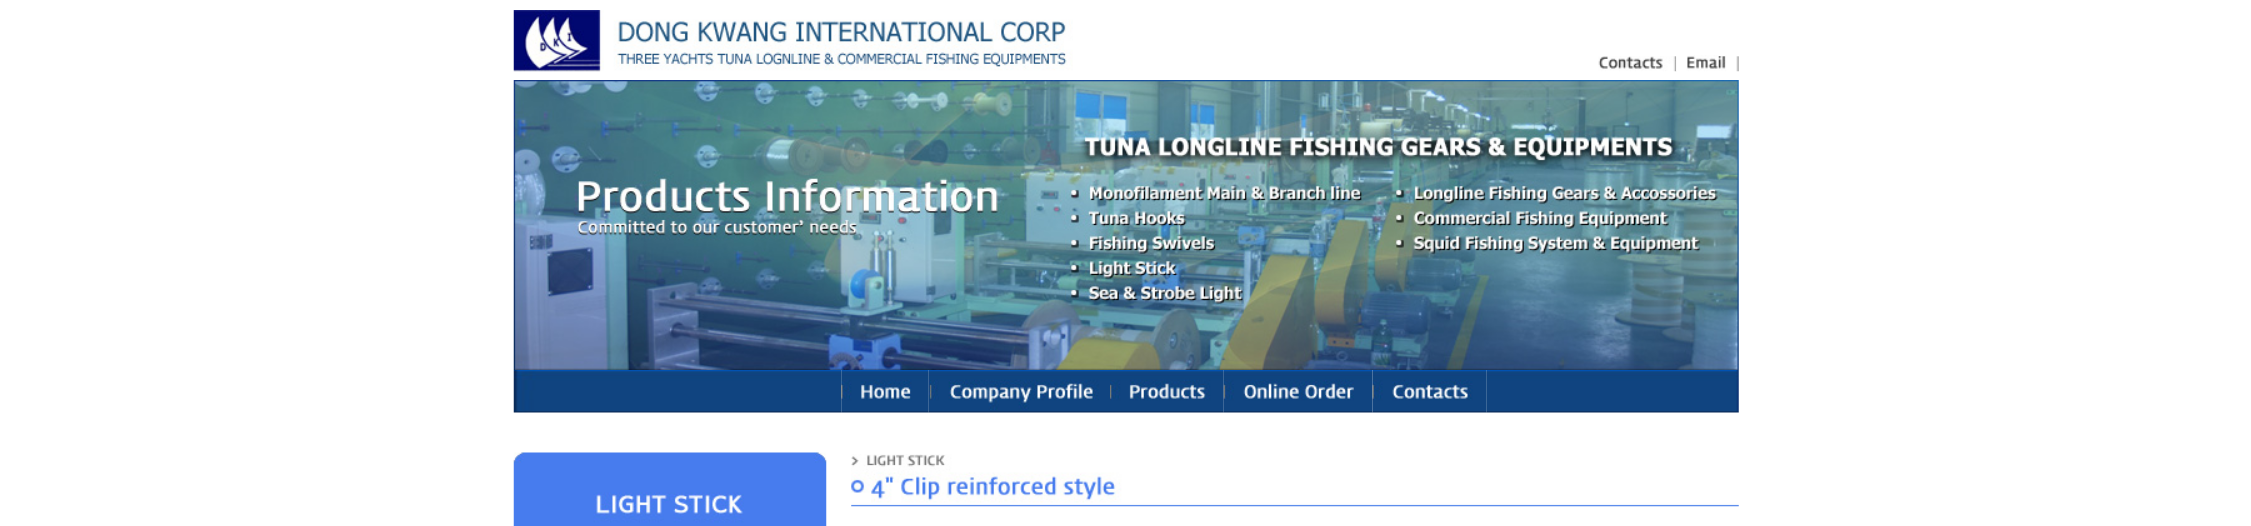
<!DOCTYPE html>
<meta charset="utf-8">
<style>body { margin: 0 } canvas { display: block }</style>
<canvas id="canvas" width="2251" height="526"></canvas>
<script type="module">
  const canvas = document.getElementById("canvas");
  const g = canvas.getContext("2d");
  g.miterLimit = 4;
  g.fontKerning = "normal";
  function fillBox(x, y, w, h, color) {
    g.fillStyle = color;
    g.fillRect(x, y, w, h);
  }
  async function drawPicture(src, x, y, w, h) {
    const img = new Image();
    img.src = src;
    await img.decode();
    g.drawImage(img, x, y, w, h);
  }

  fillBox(0, 0, 2251, 526, "#FFFFFF");
  await drawPicture("pic1.png", 513, 10, 560, 62);
  await drawPicture("pic2.png", 1598, 56, 79, 16);
  await drawPicture("pic3.png", 1676, 55, 63, 17);
  await drawPicture("pic4.png", 513, 80, 1226, 290);
  await drawPicture("pic5.png", 513, 370, 329, 43);
  await drawPicture("pic6.png", 841, 370, 88, 43);
  await drawPicture("pic7.png", 928, 370, 182, 43);
  await drawPicture("pic8.png", 1110, 370, 114, 43);
  await drawPicture("pic9.png", 1223, 370, 150, 43);
  await drawPicture("pic10.png", 1372, 370, 115, 43);
  await drawPicture("pic11.png", 1486, 370, 253, 43);
  await drawPicture("pic12.png", 513, 452, 314, 74);
  await drawPicture("pic13.png", 851, 454, 888, 53);
</script>
